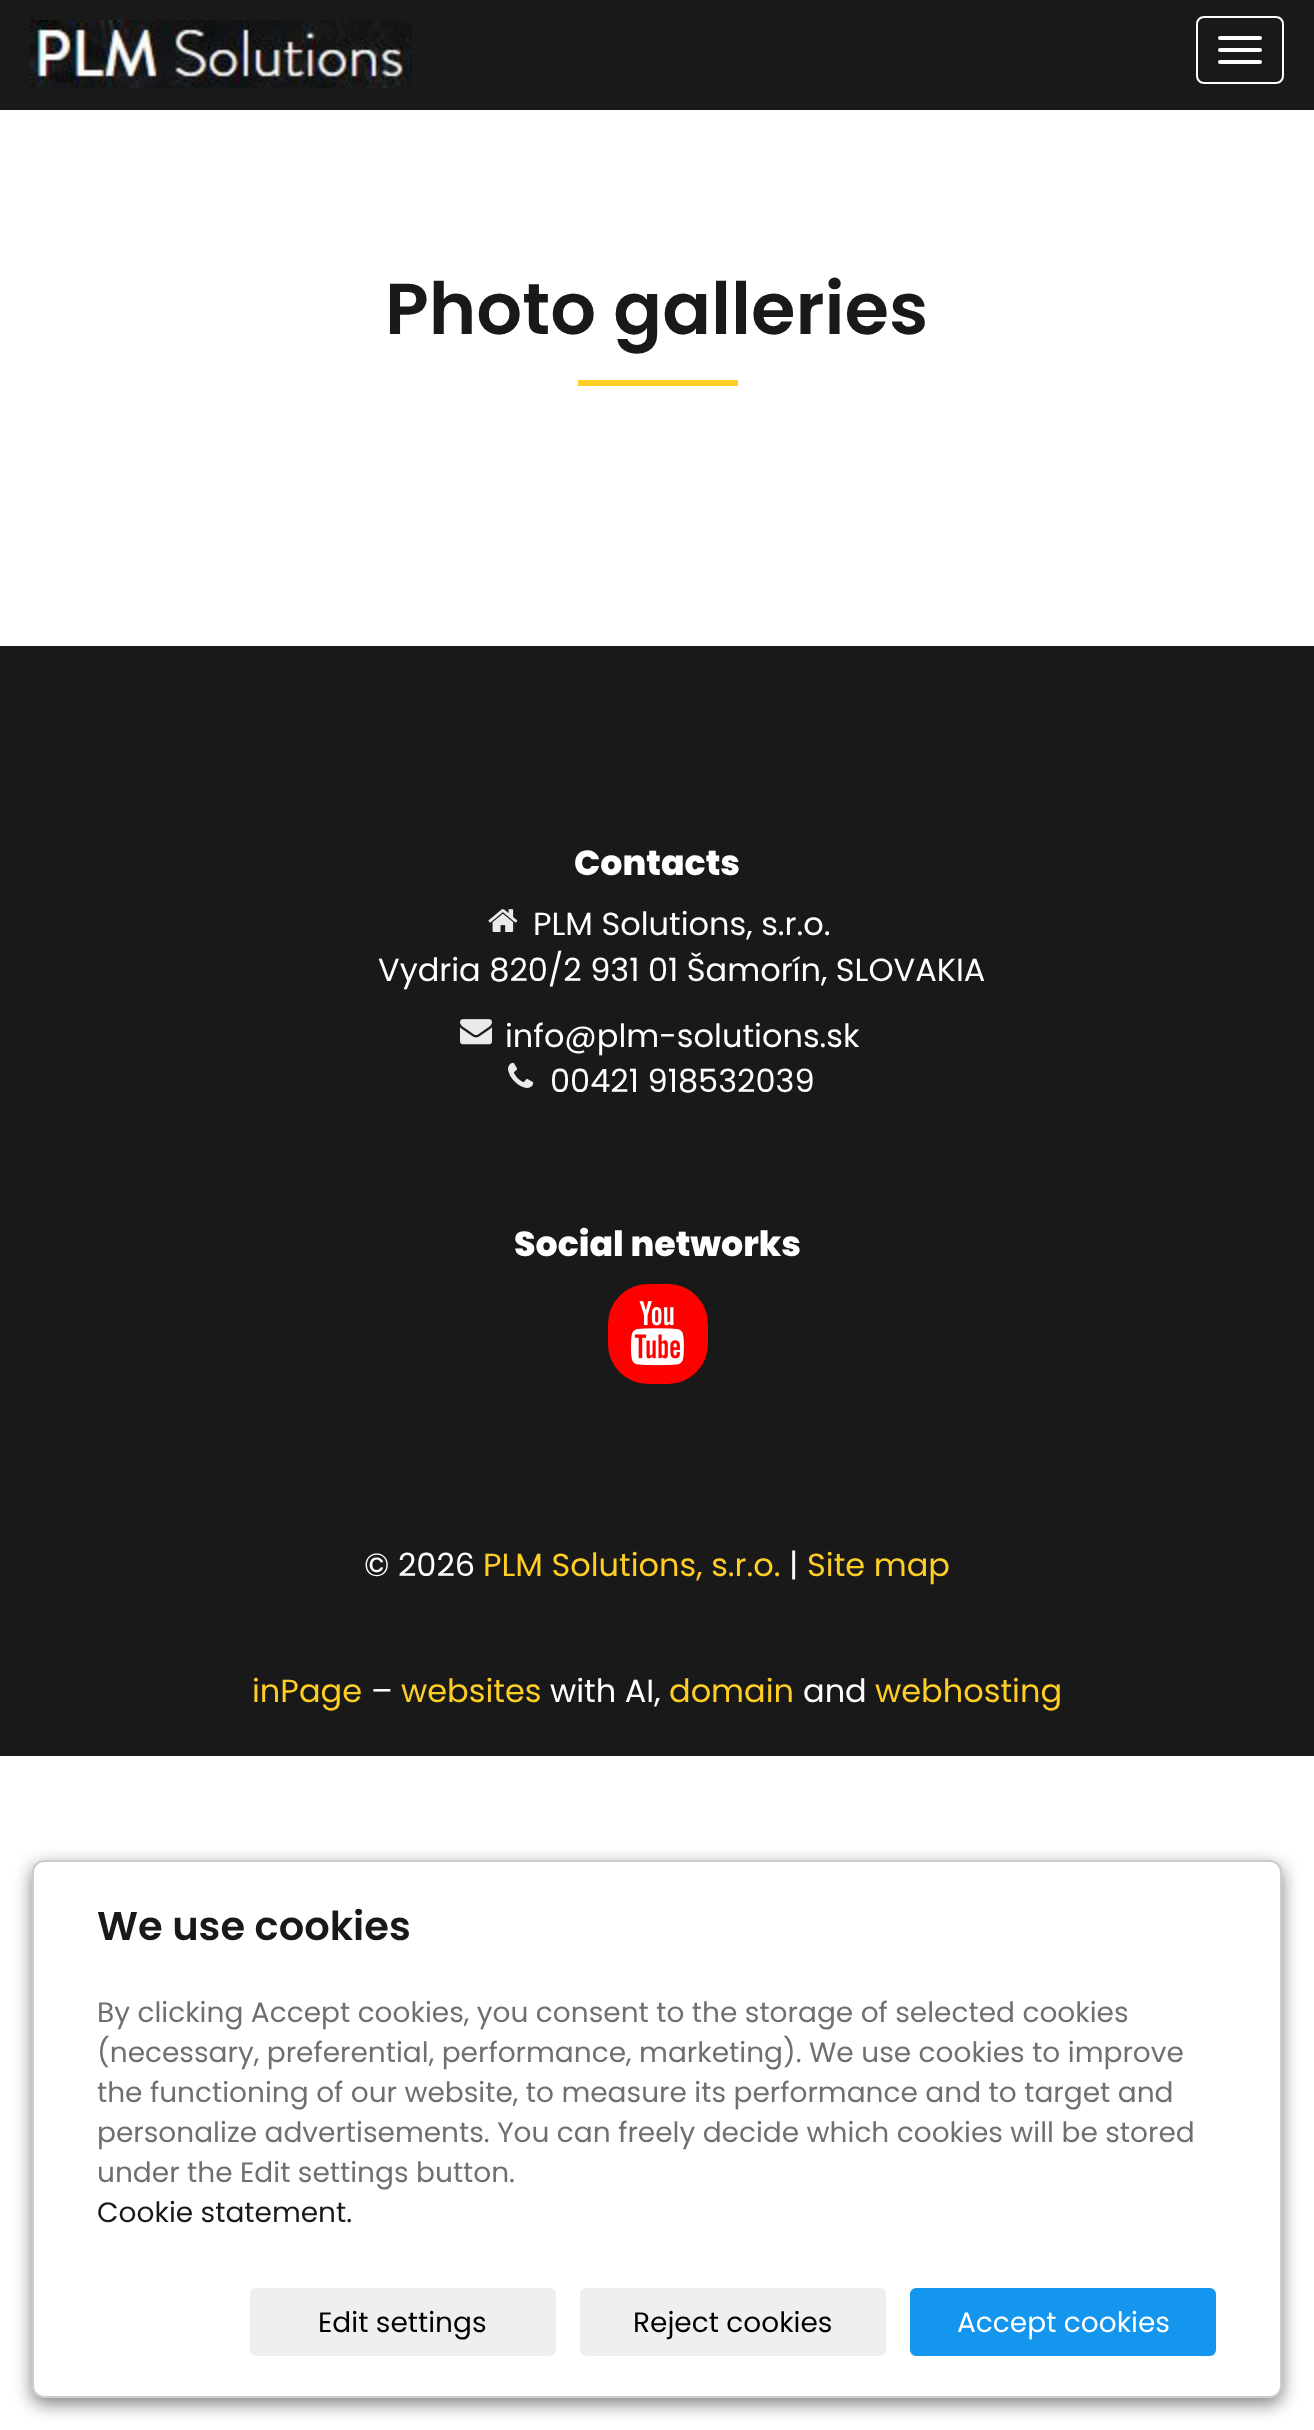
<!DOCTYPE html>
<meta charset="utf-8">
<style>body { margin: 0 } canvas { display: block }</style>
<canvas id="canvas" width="1314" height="2430"></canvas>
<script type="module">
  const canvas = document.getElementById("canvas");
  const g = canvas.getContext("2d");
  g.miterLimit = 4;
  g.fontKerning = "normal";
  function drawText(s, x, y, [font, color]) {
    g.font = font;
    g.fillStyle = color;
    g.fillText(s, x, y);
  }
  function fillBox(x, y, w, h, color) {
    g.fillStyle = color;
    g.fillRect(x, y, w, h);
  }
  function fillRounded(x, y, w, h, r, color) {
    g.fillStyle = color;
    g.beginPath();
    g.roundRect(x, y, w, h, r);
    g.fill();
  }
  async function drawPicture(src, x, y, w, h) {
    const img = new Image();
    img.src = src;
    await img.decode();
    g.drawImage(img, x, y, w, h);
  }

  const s1 = ["600 72px Poppins", "#191919"];
  const s2 = ["800 34.75px Poppins", "#FFFFFF"];
  const s3 = ["32px Poppins", "#FFFFFF"];
  const s4 = ["32px Poppins", "#FFCE25"];
  const s5 = ["600 40px Poppins", "#191919"];
  const s6 = ["28px Poppins", "#6F6F6F"];
  const s7 = ["28px Poppins", "#191919"];
  const s8 = ["28px Poppins", "#000000"];
  const s9 = ["28px Poppins", "#FFFFFF"];

  fillBox(0, 0, 1314, 2430, "#FFFFFF");
  fillBox(0, 0, 1314, 110, "#191919");
  await drawPicture("pic1.png", 30, 20, 382, 68);
  g.beginPath();
  g.roundRect(1197, 17, 86, 66, 7);
  g.strokeStyle = "#FFFFFF";
  g.lineWidth = 2;
  g.stroke();
  fillRounded(1218, 36, 44, 4, 2, "#FFFFFF");
  fillRounded(1218, 48, 44, 4, 2, "#FFFFFF");
  fillRounded(1218, 60, 44, 4, 2, "#FFFFFF");
  drawText("Photo galleries", 385, 334, s1);
  fillBox(578, 380, 160, 6, "#FFCE25");
  fillBox(0, 646, 1314, 1110, "#191919");
  drawText("Contacts", 574, 875, s2);
  await drawPicture("pic2.png", 488, 909, 30, 23);
  drawText("PLM Solutions, s.r.o.", 533, 935, s3);
  drawText("Vydria 820/2 931 01 Šamorín, SLOVAKIA", 378, 981, s3);
  await drawPicture("pic3.png", 460, 1019, 32, 26);
  drawText("info@plm-solutions.sk", 505, 1047, s3);
  await drawPicture("pic4.png", 508, 1062, 26, 26);
  drawText("00421 918532039", 550, 1092, s3);
  drawText("Social networks", 514, 1256, s2);
  fillRounded(608, 1284, 100, 100, 40, "#FF0000");
  await drawPicture("pic5.png", 630, 1301, 54, 65);
  drawText("© 2026", 364, 1576, s3);
  drawText("PLM Solutions, s.r.o.", 483, 1576, s4);
  drawText("|", 789, 1576, s3);
  drawText("Site map", 807, 1576, s4);
  drawText("inPage", 252, 1702, s4);
  drawText("–", 371, 1702, s3);
  drawText("websites", 401, 1702, s4);
  drawText("with AI,", 550, 1702, s3);
  drawText("domain", 669, 1702, s4);
  drawText("and", 803, 1702, s3);
  drawText("webhosting", 875, 1702, s4);
  g.save();
  g.beginPath();
  g.moveTo(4, 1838);
  g.lineTo(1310, 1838);
  g.lineTo(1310, 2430);
  g.lineTo(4, 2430);
  g.closePath();
  g.moveTo(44, 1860);
  g.lineTo(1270, 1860);
  g.bezierCurveTo(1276.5, 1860, 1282, 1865.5, 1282, 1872);
  g.lineTo(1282, 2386);
  g.bezierCurveTo(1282, 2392.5, 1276.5, 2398, 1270, 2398);
  g.lineTo(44, 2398);
  g.bezierCurveTo(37.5, 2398, 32, 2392.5, 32, 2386);
  g.lineTo(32, 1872);
  g.bezierCurveTo(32, 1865.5, 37.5, 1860, 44, 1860);
  g.closePath();
  g.clip("evenodd");
  g.fillStyle = "rgba(0, 0, 0, 0.5)";
  g.filter = "blur(9px)";
  g.beginPath();
  g.roundRect(32, 1866, 1250, 538, 12);
  g.fill();
  g.filter = "none";
  g.restore();
  g.beginPath();
  g.roundRect(33, 1861, 1248, 536, 11);
  g.strokeStyle = "rgba(0, 0, 0, 0.2)";
  g.stroke();
  drawText("We use cookies", 97, 1940, s5);
  drawText("By clicking Accept cookies, you consent to the storage of selected cookies", 97, 2022, s6);
  drawText("(necessary, preferential, performance, marketing). We use cookies to improve", 97, 2062, s6);
  drawText("the functioning of our website, to measure its performance and to target and", 97, 2102, s6);
  drawText("personalize advertisements. You can freely decide which cookies will be stored", 97, 2142, s6);
  drawText("under the Edit settings button.", 97, 2182, s6);
  drawText("Cookie statement.", 97, 2222, s7);
  fillRounded(250, 2288, 306, 68, 6, "#EFEFEF");
  drawText("Edit settings", 318, 2332, s8);
  fillRounded(580, 2288, 306, 68, 6, "#EFEFEF");
  drawText("Reject cookies", 633, 2332, s8);
  g.fillStyle = "#1496EE";
  g.beginPath();
  g.roundRect(911, 2289, 304, 66, 5);
  g.fill();
  g.strokeStyle = "#1496EE";
  g.stroke();
  drawText("Accept cookies", 957, 2332, s9);
</script>
